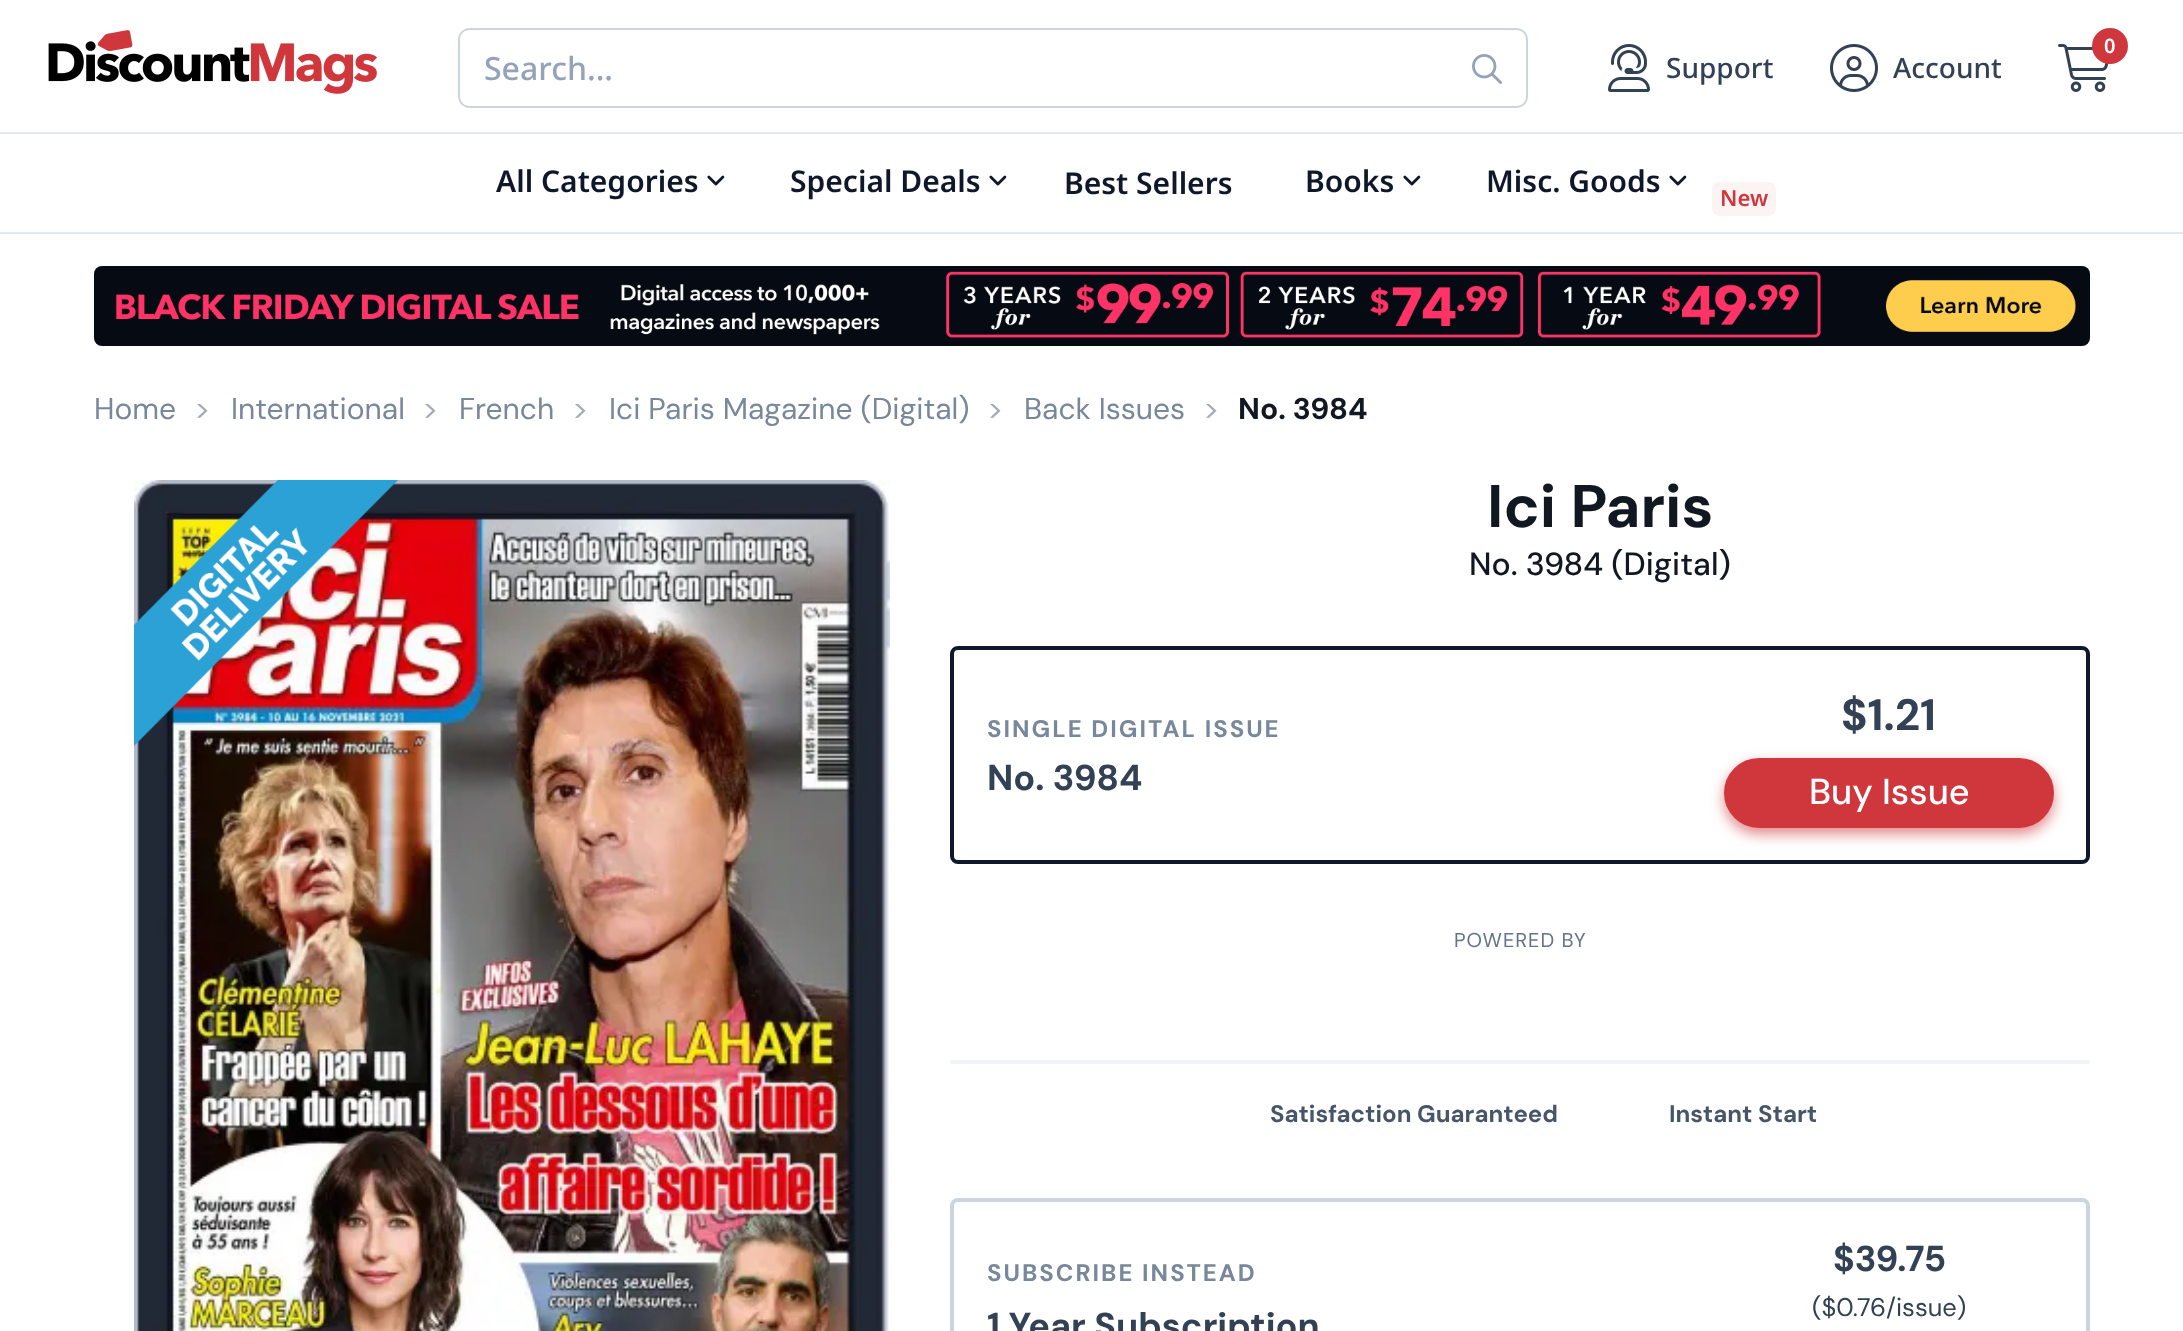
<!DOCTYPE html>
<meta charset="utf-8">
<style>body { margin: 0 } canvas { display: block }</style>
<canvas id="canvas" width="2183" height="1331"></canvas>
<script type="module">
  const canvas = document.getElementById("canvas");
  const g = canvas.getContext("2d");
  g.miterLimit = 4;
  g.fontKerning = "normal";
  function drawText(s, x, y, [font, color]) {
    g.font = font;
    g.fillStyle = color;
    g.fillText(s, x, y);
  }
  function fillBox(x, y, w, h, color) {
    g.fillStyle = color;
    g.fillRect(x, y, w, h);
  }
  function fillRounded(x, y, w, h, r, color) {
    g.fillStyle = color;
    g.beginPath();
    g.roundRect(x, y, w, h, r);
    g.fill();
  }
  async function drawPicture(src, x, y, w, h) {
    const img = new Image();
    img.src = src;
    await img.decode();
    g.drawImage(img, x, y, w, h);
  }

  const s1 = ["500 32px Noto Sans", "#94A3B8"];
  const s2 = ["600 20px Noto Sans", "#FFFFFF"];
  const s3 = ["500 28px Noto Sans", "#334155"];
  const s4 = ["600 30px Noto Sans", "#0F172A"];
  const s5 = ["600 22px Noto Sans", "#CF373C"];
  const s6 = ["30px DM Sans", "#79879A"];
  const s7 = ["30px DM Sans", "#A2ABB9"];
  const s8 = ["bold 30px DM Sans", "#111822"];
  const s9 = ["bold 60px DM Sans", "#111822"];
  const s10 = ["500 32px DM Sans", "#111822"];
  const s11 = ["bold 24px DM Sans", "#79879A"];
  const s12 = ["bold 36px DM Sans", "#334155"];
  const s13 = ["bold 44px DM Sans", "#334155"];
  const s14 = ["500 36px DM Sans", "#FFFFFF"];
  const s15 = ["20px DM Sans", "#64748B"];
  const s16 = ["bold 24px DM Sans", "#475569"];
  const s17 = ["25.5px DM Sans", "#334155"];

  fillBox(0, 0, 2183, 1331, "#FFFFFF");
  fillBox(0, 232, 2183, 2, "#E2E8F0");
  await drawPicture("pic1.png", 48, 30, 330, 64);
  g.fillStyle = "#CBD5E1";
  g.beginPath();
  g.moveTo(470, 28);
  g.lineTo(1448, 28);
  g.lineTo(1448, 108);
  g.lineTo(470, 108);
  g.bezierCurveTo(463, 108, 458, 103, 458, 96);
  g.lineTo(458, 40);
  g.bezierCurveTo(458, 33, 463, 28, 470, 28);
  g.closePath();
  g.moveTo(470, 30);
  g.lineTo(1448, 30);
  g.lineTo(1448, 106);
  g.lineTo(470, 106);
  g.bezierCurveTo(464, 106, 460, 102, 460, 96);
  g.lineTo(460, 40);
  g.bezierCurveTo(460, 34, 464, 30, 470, 30);
  g.closePath();
  g.fill("evenodd");
  drawText("Search...", 484, 80, s1);
  g.fillStyle = "#CBD5E1";
  g.beginPath();
  g.moveTo(1448, 28);
  g.lineTo(1516, 28);
  g.bezierCurveTo(1523, 28, 1528, 33, 1528, 40);
  g.lineTo(1528, 96);
  g.bezierCurveTo(1528, 103, 1523, 108, 1516, 108);
  g.lineTo(1448, 108);
  g.closePath();
  g.moveTo(1448, 30);
  g.lineTo(1516, 30);
  g.bezierCurveTo(1522, 30, 1526, 34, 1526, 40);
  g.lineTo(1526, 96);
  g.bezierCurveTo(1526, 102, 1522, 106, 1516, 106);
  g.lineTo(1448, 106);
  g.closePath();
  g.fill("evenodd");
  await drawPicture("pic2.png", 1472, 54, 30, 30);
  await drawPicture("pic3.png", 2058, 44, 51, 48);
  g.fillStyle = "#CF373C";
  g.beginPath();
  g.arc(2110, 46, 18, 0, Math.PI * 2);
  g.fill();
  g.letterSpacing = "-1px";
  drawText("0", 2104, 53, s2);
  await drawPicture("pic4.png", 1608, 44, 42, 48);
  g.letterSpacing = "0px";
  drawText("Support", 1666, 78, s3);
  await drawPicture("pic5.png", 1830, 44, 48, 48);
  drawText("Account", 1893, 78, s3);
  fillBox(0, 132, 2183, 2, "#E2E8F0");
  drawText("All Categories", 496, 192, s4);
  await drawPicture("pic6.png", 707, 175, 18, 11);
  drawText("Special Deals", 790, 192, s4);
  await drawPicture("pic6.png", 989, 175, 18, 11);
  drawText("Best Sellers", 1064, 194, s4);
  drawText("Books", 1305, 192, s4);
  await drawPicture("pic6.png", 1403, 175, 18, 11);
  drawText("Misc. Goods", 1486, 192, s4);
  await drawPicture("pic6.png", 1669, 175, 18, 11);
  fillRounded(1712, 182, 64, 34, 8, "#FCF3F3");
  drawText("New", 1720, 206, s5);
  await drawPicture("pic7.png", 94, 266, 1996, 80);
  drawText("Home", 94, 419, s6);
  drawText(">", 194, 419, s7);
  drawText("International", 231, 419, s6);
  drawText(">", 422, 419, s7);
  drawText("French", 459, 419, s6);
  drawText(">", 572, 419, s7);
  drawText("Ici Paris Magazine (Digital)", 609, 419, s6);
  drawText(">", 987, 419, s7);
  drawText("Back Issues", 1024, 419, s6);
  drawText(">", 1203, 419, s7);
  drawText("No. 3984", 1238, 419, s8);
  await drawPicture("pic8.png", 134, 480, 756, 851);
  await drawPicture("pic9.png", 134, 480, 264, 266);
  drawText("Ici Paris", 1487, 527, s9);
  drawText("No. 3984 (Digital)", 1469, 575, s10);
  g.beginPath();
  g.roundRect(952, 648, 1136, 214, 6);
  g.strokeStyle = "#0F172A";
  g.lineWidth = 4;
  g.stroke();
  g.letterSpacing = "2px";
  drawText("SINGLE DIGITAL ISSUE", 987, 737, s11);
  g.letterSpacing = "0px";
  drawText("No. 3984", 987, 790, s12);
  drawText("$1.21", 1841, 730, s13);
  g.fillStyle = "rgba(207, 55, 60, 0.6)";
  g.filter = "blur(7px)";
  g.beginPath();
  g.roundRect(1724, 764, 330, 70, 35);
  g.fill();
  g.filter = "none";
  g.fillStyle = "#CF373C";
  g.beginPath();
  g.roundRect(1725, 759, 328, 68, 34);
  g.fill();
  g.strokeStyle = "#CF373C";
  g.lineWidth = 2;
  g.stroke();
  drawText("Buy Issue", 1809, 804, s14);
  g.letterSpacing = "1px";
  drawText("POWERED BY", 1454, 947, s15);
  fillBox(950, 1060, 1140, 4, "#F1F5F9");
  g.letterSpacing = "0px";
  drawText("Satisfaction Guaranteed", 1270, 1122, s16);
  drawText("Instant Start", 1669, 1122, s16);
  g.beginPath();
  g.roundRect(952, 1200, 1136, 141, 6);
  g.strokeStyle = "#CBD5E1";
  g.lineWidth = 4;
  g.stroke();
  g.letterSpacing = "2px";
  drawText("SUBSCRIBE INSTEAD", 987, 1281, s11);
  g.letterSpacing = "0px";
  drawText("1 Year Subscription", 987, 1338, s12);
  drawText("$39.75", 1833, 1271, s12);
  drawText("($0.76", 1812, 1316, s17);
  drawText("/issue)", 1886, 1316, s17);
</script>
